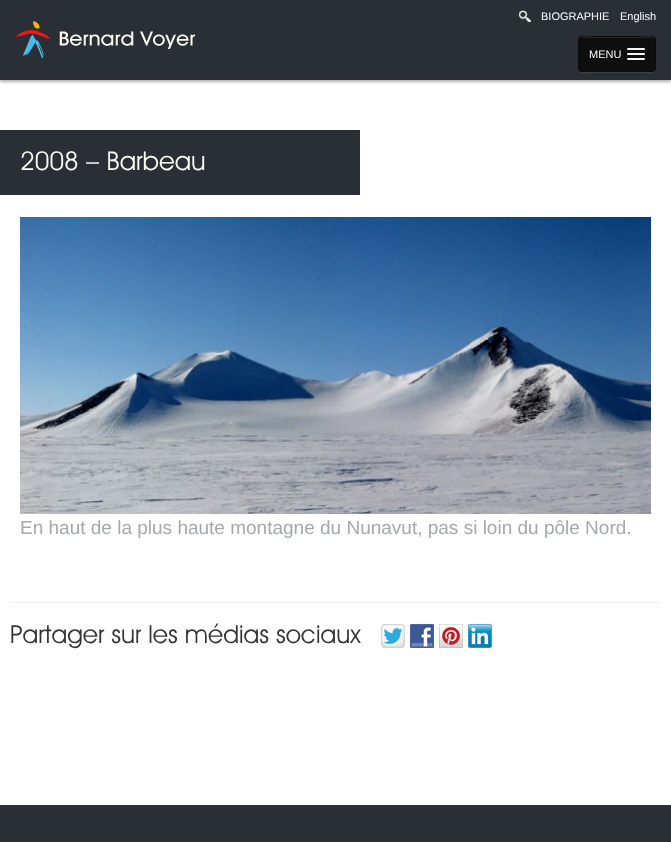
<!DOCTYPE html>
<meta charset="utf-8">
<style>body { margin: 0 } canvas { display: block }</style>
<canvas id="canvas" width="671" height="842"></canvas>
<script type="module">
  const canvas = document.getElementById("canvas");
  const g = canvas.getContext("2d");
  g.miterLimit = 4;
  g.fontKerning = "normal";
  function drawText(s, x, y, [font, color]) {
    g.font = font;
    g.fillStyle = color;
    g.fillText(s, x, y);
  }
  function fillBox(x, y, w, h, color) {
    g.fillStyle = color;
    g.fillRect(x, y, w, h);
  }
  function fillRounded(x, y, w, h, r, color) {
    g.fillStyle = color;
    g.beginPath();
    g.roundRect(x, y, w, h, r);
    g.fill();
  }
  async function drawPicture(src, x, y, w, h) {
    const img = new Image();
    img.src = src;
    await img.decode();
    g.drawImage(img, x, y, w, h);
  }

  const s1 = ["11px Liberation Sans", "#FFFFFF"];
  const s2 = ["26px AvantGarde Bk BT", "#FBFBF3"];
  const s3 = ["19px Liberation Sans", "#A5A9AC"];
  const s4 = ["25px AvantGarde Bk BT", "#333333"];

  fillBox(0, 0, 671, 842, "#FFFFFF");
  g.fillStyle = "rgba(0, 0, 0, 0.3)";
  g.filter = "blur(1.5px)";
  g.beginPath();
  g.rect(0, 2, 671, 80);
  g.fill();
  g.filter = "none";
  fillBox(0, 0, 671, 80, "#2A2F35");
  await drawPicture("pic1.png", 15, 21, 180, 38);
  await drawPicture("pic2.png", 519, 10, 12, 12);
  drawText("BIOGRAPHIE", 541, 20, s1);
  drawText("English", 620, 20, s1);
  g.fillStyle = "#3A3F44";
  g.beginPath();
  g.moveTo(578, 68);
  g.bezierCurveTo(578, 76, 589, 73, 594, 73);
  g.lineTo(640, 73);
  g.bezierCurveTo(645, 73, 656, 76, 656, 68);
  g.bezierCurveTo(656, 70, 654, 72, 652, 72);
  g.lineTo(582, 72);
  g.bezierCurveTo(580, 72, 578, 70, 578, 68);
  g.closePath();
  g.fill();
  fillRounded(578, 36, 78, 36, 4, "#0E0E0E");
  g.fillStyle = "#262626";
  g.beginPath();
  g.moveTo(582, 38);
  g.lineTo(652, 38);
  g.bezierCurveTo(654, 38, 655, 39, 655, 41);
  g.bezierCurveTo(655, 34, 644, 37, 640, 37);
  g.lineTo(594, 37);
  g.bezierCurveTo(590, 37, 579, 34, 579, 41);
  g.bezierCurveTo(579, 39, 580, 38, 582, 38);
  g.closePath();
  g.fill();
  g.beginPath();
  g.moveTo(654.5, 70.5);
  g.bezierCurveTo(654, 71, 653, 71.5, 652, 71.5);
  g.lineTo(582, 71.5);
  g.bezierCurveTo(581, 71.5, 580, 71, 579.5, 70.5);
  g.strokeStyle = "rgba(0, 0, 0, 0.25)";
  g.stroke();
  g.beginPath();
  g.moveTo(579.5, 70.5);
  g.bezierCurveTo(577, 68, 578.5, 57, 578.5, 54);
  g.bezierCurveTo(578.5, 34.5, 575, 36.5, 593.5, 36.5);
  g.lineTo(640.5, 36.5);
  g.bezierCurveTo(659, 36.5, 655.5, 34.5, 655.5, 54);
  g.bezierCurveTo(655.5, 57, 657, 68, 654.5, 70.5);
  g.strokeStyle = "rgba(0, 0, 0, 0.1)";
  g.stroke();
  drawText("MENU", 589, 58, s1);
  g.fillStyle = "#0B0B0B";
  g.beginPath();
  g.moveTo(627, 49.5);
  g.bezierCurveTo(626, 51.5, 630.5, 51, 630.5, 51);
  g.lineTo(641.5, 51);
  g.bezierCurveTo(641.5, 51, 646, 51.5, 645, 49.5);
  g.bezierCurveTo(644, 50.5, 637.5, 50, 636, 50);
  g.bezierCurveTo(634.5, 50, 628, 50.5, 627, 49.5);
  g.closePath();
  g.fill();
  fillRounded(627, 48, 18, 2, 1, "#F5F5F5");
  g.fillStyle = "#0B0B0B";
  g.beginPath();
  g.moveTo(627, 54.5);
  g.bezierCurveTo(626, 56.5, 630.5, 56, 630.5, 56);
  g.lineTo(641.5, 56);
  g.bezierCurveTo(641.5, 56, 646, 56.5, 645, 54.5);
  g.bezierCurveTo(644, 55.5, 637.5, 55, 636, 55);
  g.bezierCurveTo(634.5, 55, 628, 55.5, 627, 54.5);
  g.closePath();
  g.fill();
  fillRounded(627, 53, 18, 2, 1, "#F5F5F5");
  g.fillStyle = "#0B0B0B";
  g.beginPath();
  g.moveTo(627, 59.5);
  g.bezierCurveTo(626, 61.5, 630.5, 61, 630.5, 61);
  g.lineTo(641.5, 61);
  g.bezierCurveTo(641.5, 61, 646, 61.5, 645, 59.5);
  g.bezierCurveTo(644, 60.5, 637.5, 60, 636, 60);
  g.bezierCurveTo(634.5, 60, 628, 60.5, 627, 59.5);
  g.closePath();
  g.fill();
  fillRounded(627, 58, 18, 2, 1, "#F5F5F5");
  fillBox(0, 130, 360, 65, "#2A2F35");
  drawText("2008 – Barbeau", 20, 170, s2);
  await drawPicture("pic3.png", 20, 217, 631, 297);
  drawText("En haut de la plus haute montagne du Nunavut, pas si loin du pôle Nord.", 20, 534, s3);
  fillBox(10, 602, 651, 1, "#F0F0F0");
  drawText("Partager sur les médias sociaux", 10, 643, s4);
  await drawPicture("pic4.png", 381, 624, 24, 24);
  await drawPicture("pic5.png", 410, 624, 24, 24);
  await drawPicture("pic6.png", 439, 624, 24, 24);
  await drawPicture("pic7.png", 468, 624, 24, 24);
  fillBox(0, 805, 671, 37, "#2A2F35");
</script>
